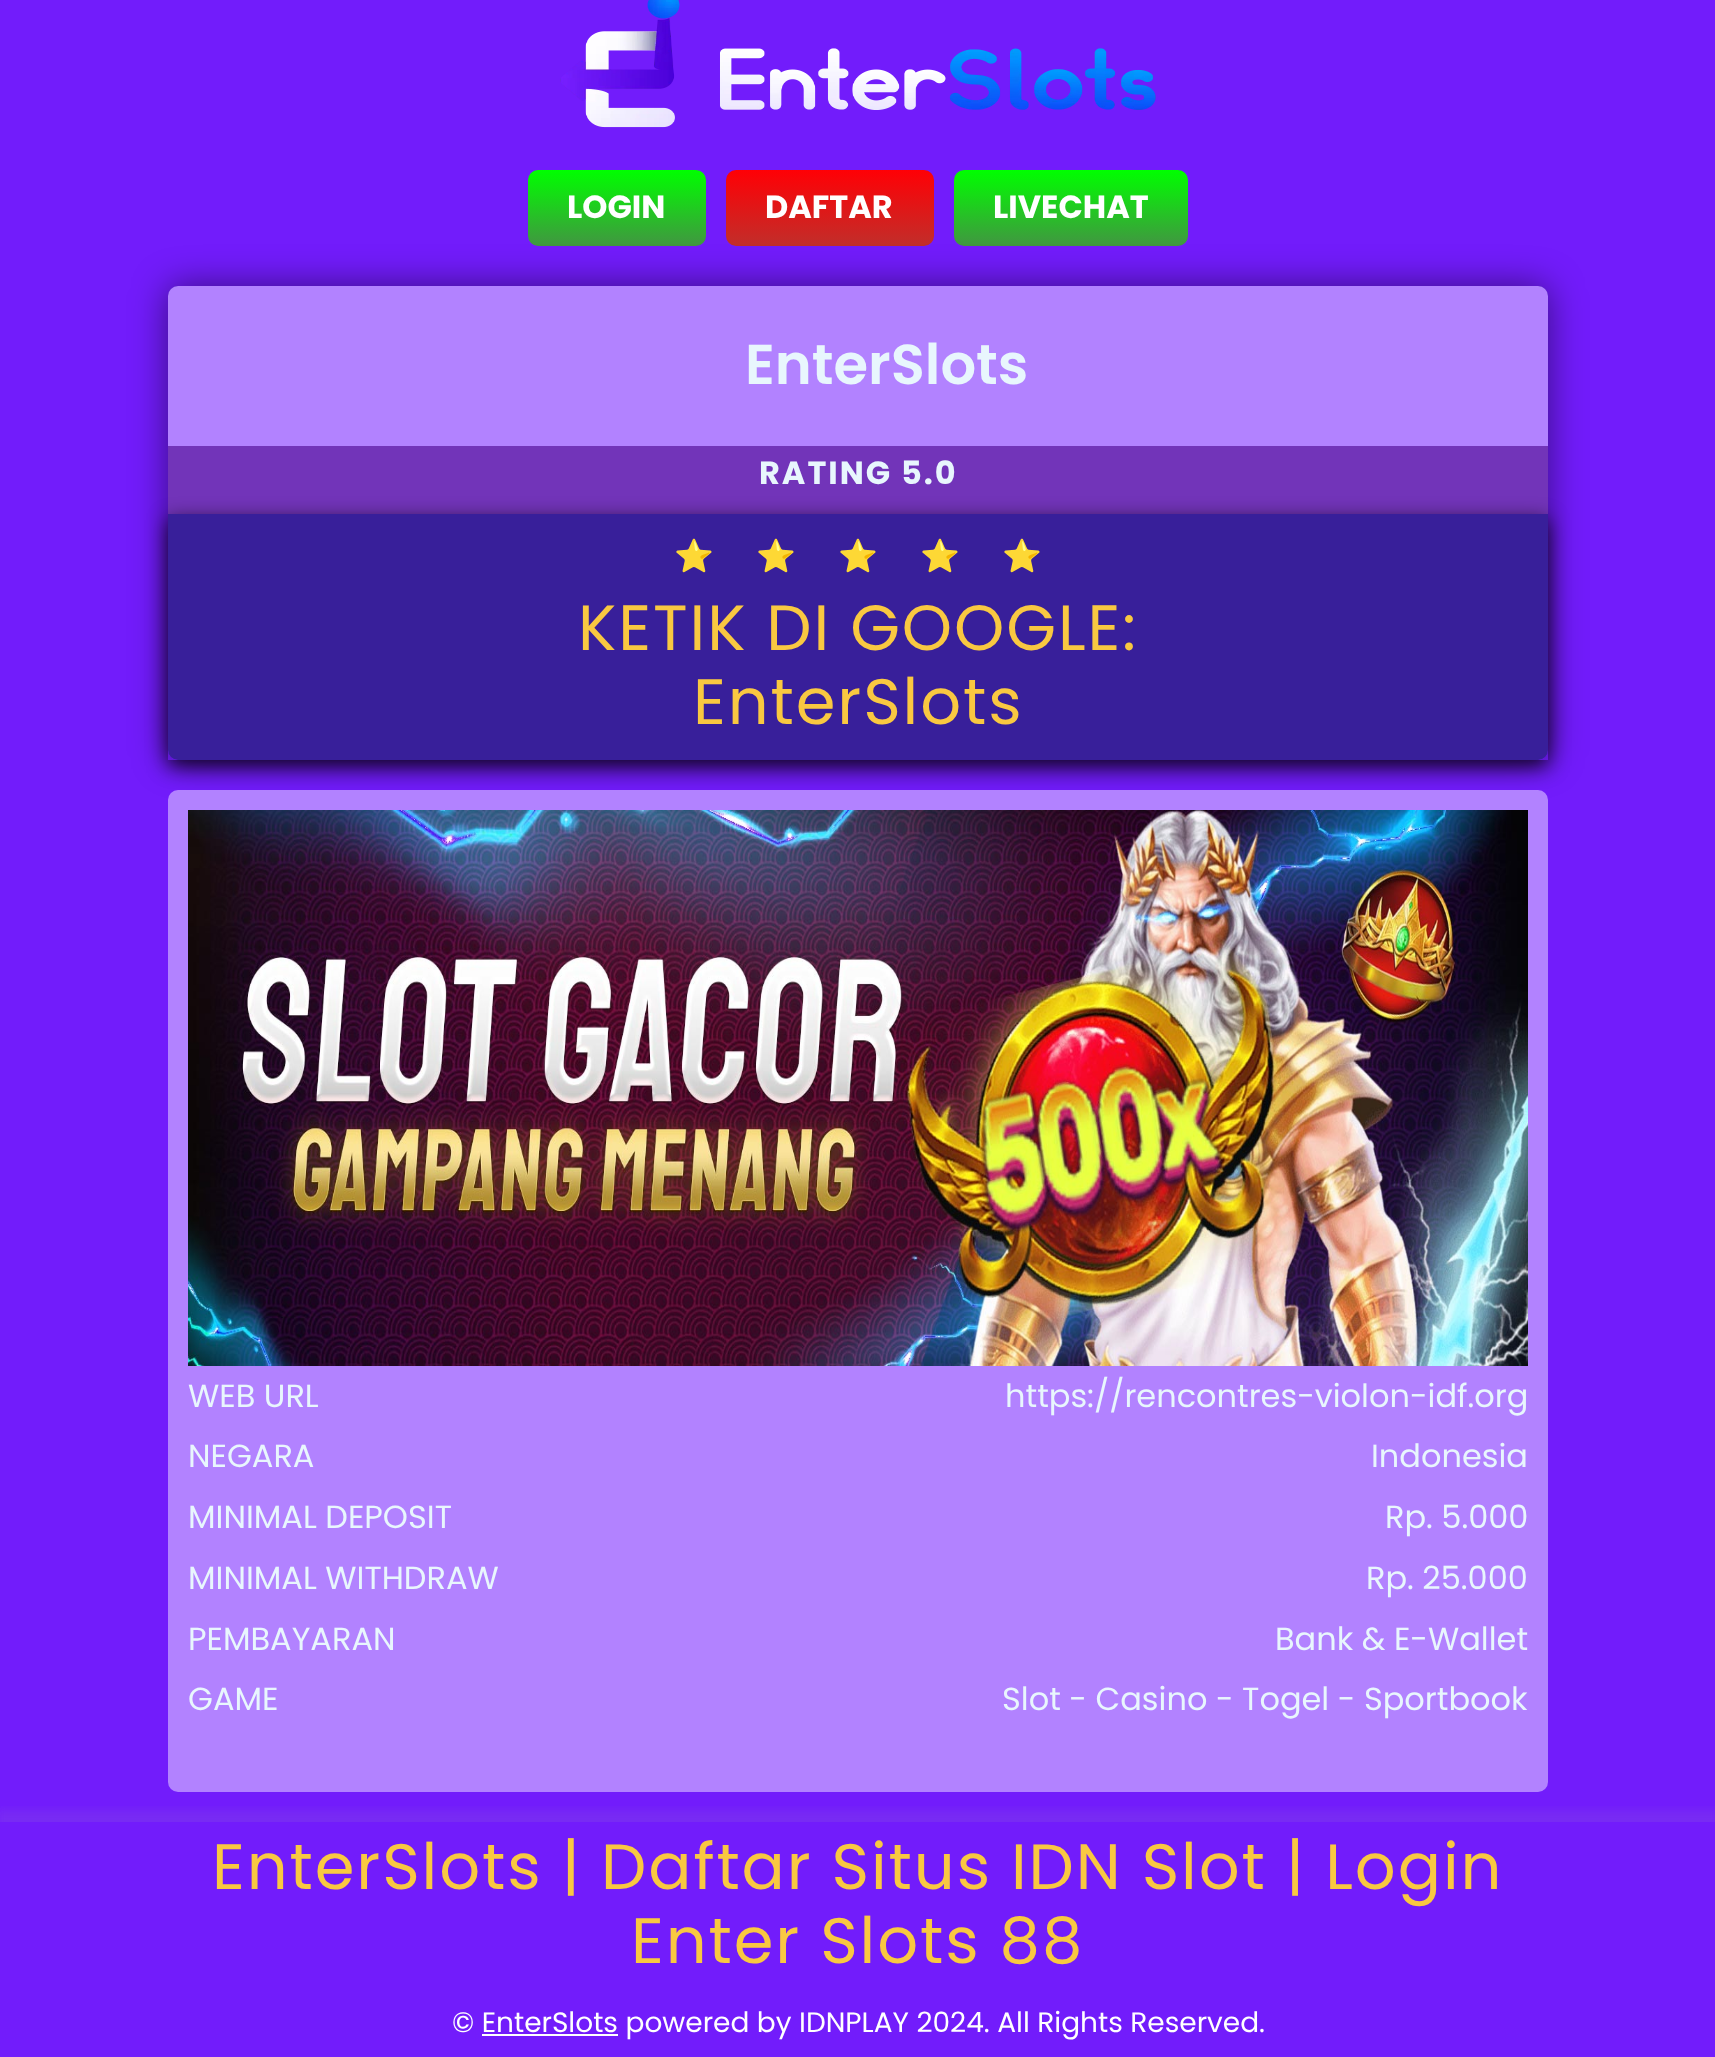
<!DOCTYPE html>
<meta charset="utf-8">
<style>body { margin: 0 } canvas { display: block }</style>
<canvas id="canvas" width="1715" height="2057"></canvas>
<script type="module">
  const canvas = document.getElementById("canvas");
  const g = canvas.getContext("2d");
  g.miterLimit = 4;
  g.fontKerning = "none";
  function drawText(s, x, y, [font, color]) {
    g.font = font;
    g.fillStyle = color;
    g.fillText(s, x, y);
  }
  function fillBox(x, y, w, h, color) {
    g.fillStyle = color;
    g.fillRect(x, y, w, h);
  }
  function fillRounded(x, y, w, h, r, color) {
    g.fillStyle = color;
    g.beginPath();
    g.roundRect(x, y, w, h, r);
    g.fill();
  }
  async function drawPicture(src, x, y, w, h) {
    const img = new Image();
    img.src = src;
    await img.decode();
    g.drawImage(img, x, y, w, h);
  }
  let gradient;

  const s1 = ["bold 32px Poppins", "#FFFFFF"];
  const s2 = ["600 56px Poppins", "#E8F6FD"];
  const s3 = ["bold 32px Poppins", "#E8F6FD"];
  const s4 = ["32px Noto Color Emoji", "#000000"];
  const s5 = ["64px Poppins", "#F9C841"];
  const s6 = ["32px Poppins", "#E8F6FD"];
  const s7 = ["28px Poppins", "#FFFFFF"];

  fillBox(0, 0, 1715, 2057, "#721CFB");
  await drawPicture("pic1.png", 560, 0, 596, 128);
  gradient = g.createLinearGradient(617, 170, 617, 246);
  gradient.addColorStop(0, "#00FF00");
  gradient.addColorStop(1, "#419641");
  g.fillStyle = gradient;
  g.beginPath();
  g.roundRect(528, 170, 178, 76, 10);
  g.fill();
  drawText("LOGIN", 567, 218, s1);
  gradient = g.createLinearGradient(830, 170, 830, 246);
  gradient.addColorStop(0, "#FF0005");
  gradient.addColorStop(1, "#C12E2A");
  g.fillStyle = gradient;
  g.beginPath();
  g.roundRect(726, 170, 208, 76, 10);
  g.fill();
  drawText("DAFTAR", 765, 218, s1);
  gradient = g.createLinearGradient(1071, 170, 1071, 246);
  gradient.addColorStop(0, "#00FF00");
  gradient.addColorStop(1, "#419641");
  g.fillStyle = gradient;
  g.beginPath();
  g.roundRect(954, 170, 234, 76, 10);
  g.fill();
  drawText("LIVECHAT", 993, 218, s1);
  g.save();
  g.beginPath();
  g.moveTo(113, 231);
  g.lineTo(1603, 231);
  g.lineTo(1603, 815);
  g.lineTo(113, 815);
  g.closePath();
  g.moveTo(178, 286);
  g.lineTo(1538, 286);
  g.bezierCurveTo(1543.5, 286, 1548, 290.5, 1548, 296);
  g.lineTo(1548, 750);
  g.bezierCurveTo(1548, 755.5, 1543.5, 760, 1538, 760);
  g.lineTo(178, 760);
  g.bezierCurveTo(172.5, 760, 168, 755.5, 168, 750);
  g.lineTo(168, 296);
  g.bezierCurveTo(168, 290.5, 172.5, 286, 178, 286);
  g.closePath();
  g.clip("evenodd");
  g.fillStyle = "rgba(0, 0, 0, 0.5)";
  g.filter = "blur(18px)";
  g.beginPath();
  g.roundRect(168, 286, 1380, 474, 10);
  g.fill();
  g.filter = "none";
  g.restore();
  fillRounded(168, 286, 1380, 474, 10, "rgba(4, 34, 66, 0.52)");
  g.fillStyle = "#B282FF";
  g.beginPath();
  g.roundRect(168, 286, 1380, 160, [10, 10, 0, 0]);
  g.fill();
  drawText("EnterSlots", 745, 384, s2);
  fillBox(168, 446, 1380, 68, "#7234B9");
  g.letterSpacing = "2px";
  drawText("RATING 5.0", 759, 484, s3);
  g.save();
  g.beginPath();
  g.moveTo(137, 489);
  g.lineTo(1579, 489);
  g.lineTo(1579, 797);
  g.lineTo(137, 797);
  g.closePath();
  g.moveTo(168, 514);
  g.lineTo(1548, 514);
  g.lineTo(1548, 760);
  g.lineTo(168, 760);
  g.closePath();
  g.clip("evenodd");
  g.fillStyle = "rgba(0, 0, 0, 0.8)";
  g.filter = "blur(10px)";
  g.beginPath();
  g.rect(168, 520, 1380, 246);
  g.fill();
  g.filter = "none";
  g.restore();
  g.letterSpacing = "0px";
  drawText("⭐", 674, 567, s4);
  drawText("⭐", 756, 567, s4);
  drawText("⭐", 838, 567, s4);
  drawText("⭐", 920, 567, s4);
  drawText("⭐", 1002, 567, s4);
  g.letterSpacing = "1.9px";
  drawText("KETIK DI GOOGLE:", 578, 650, s5);
  drawText("EnterSlots", 693, 724, s5);
  fillRounded(168, 790, 1380, 1002, 10, "#B282FF");
  await drawPicture("pic2.png", 188, 810, 1340, 556);
  g.letterSpacing = "0px";
  drawText("WEB URL", 188, 1407, s6);
  drawText("https://rencontres-violon-idf.org", 1005, 1407, s6);
  drawText("NEGARA", 188, 1467, s6);
  drawText("Indonesia", 1371, 1467, s6);
  drawText("MINIMAL DEPOSIT", 188, 1528, s6);
  drawText("Rp. 5.000", 1385, 1528, s6);
  drawText("MINIMAL WITHDRAW", 188, 1589, s6);
  drawText("Rp. 25.000", 1366, 1589, s6);
  drawText("PEMBAYARAN", 188, 1650, s6);
  drawText("Bank & E-Wallet", 1275, 1650, s6);
  drawText("GAME", 188, 1710, s6);
  drawText("Slot - Casino - Togel - Sportbook", 1002, 1710, s6);
  g.save();
  g.beginPath();
  g.rect(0, 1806, 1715, 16);
  g.clip();
  g.fillStyle = "rgba(176, 176, 176, 0.1)";
  g.filter = "blur(5px)";
  g.beginPath();
  g.rect(-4, 1810, 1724, 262);
  g.fill();
  g.filter = "none";
  g.restore();
  g.letterSpacing = "1.9px";
  drawText("EnterSlots | Daftar Situs IDN Slot | Login", 212, 1889, s5);
  drawText("Enter Slots 88", 631, 1963, s5);
  g.letterSpacing = "0px";
  drawText("© EnterSlots powered by IDNPLAY 2024. All Rights Reserved.", 452, 2032, s7);
  fillBox(482, 2034, 136, 2, "#FFFFFF");
</script>
